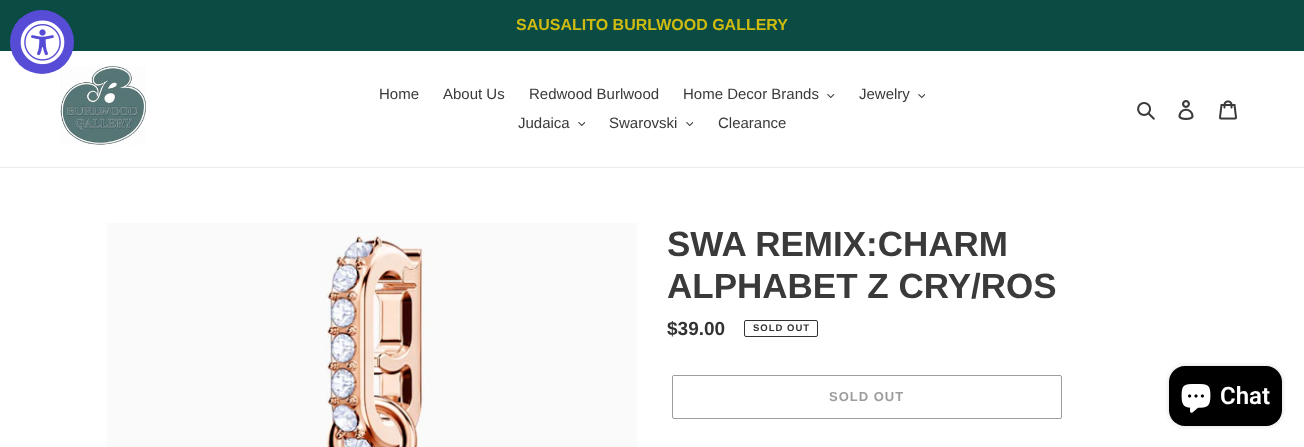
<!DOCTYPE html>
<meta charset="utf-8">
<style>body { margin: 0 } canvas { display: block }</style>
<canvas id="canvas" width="1304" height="447"></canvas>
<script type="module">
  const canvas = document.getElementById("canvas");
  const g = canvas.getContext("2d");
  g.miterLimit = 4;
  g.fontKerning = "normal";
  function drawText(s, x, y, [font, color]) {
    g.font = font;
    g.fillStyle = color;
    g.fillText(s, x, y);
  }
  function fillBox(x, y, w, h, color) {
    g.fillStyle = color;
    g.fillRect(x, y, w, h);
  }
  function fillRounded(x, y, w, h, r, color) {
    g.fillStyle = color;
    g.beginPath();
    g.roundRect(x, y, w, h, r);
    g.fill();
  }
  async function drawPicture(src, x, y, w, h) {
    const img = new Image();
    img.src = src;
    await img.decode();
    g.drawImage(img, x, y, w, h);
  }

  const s1 = ["bold 16px Liberation Sans", "#CFBB10"];
  const s2 = ["15px Liberation Sans", "#3A3A3A"];
  const s3 = ["bold 35px Liberation Sans", "#3A3A3A"];
  const s4 = ["bold 19px Liberation Sans", "#333232"];
  const s5 = ["bold 9.5px Liberation Sans", "#333232"];
  const s6 = ["bold 13px Liberation Sans", "#9D9D9D"];
  const s7 = ["600 24px Roboto", "#FFFFFF"];

  fillBox(0, 0, 1304, 447, "#FFFFFF");
  fillBox(0, 0, 1304, 51, "#0A4C44");
  await drawPicture("pic2.png", 60, 66, 86, 80);
  g.fillStyle = "#574CD5";
  g.beginPath();
  g.arc(42, 42, 32, 0, Math.PI * 2);
  g.fill();
  await drawPicture("pic1.png", 20, 20, 45, 45);
  drawText("SAUSALITO BURLWOOD GALLERY", 516, 30, s1);
  fillBox(0, 167, 1304, 1, "#EBEBEB");
  drawText("Home", 379, 99, s2);
  drawText("About Us", 443, 99, s2);
  drawText("Redwood Burlwood", 529, 99, s2);
  drawText("Home Decor Brands", 683, 99, s2);
  await drawPicture("pic3.png", 827, 94, 8, 4);
  drawText("Jewelry", 859, 99, s2);
  await drawPicture("pic4.png", 918, 94, 7, 4);
  drawText("Judaica", 518, 128, s2);
  await drawPicture("pic4.png", 578, 122, 7, 4);
  drawText("Swarovski", 609, 128, s2);
  await drawPicture("pic4.png", 686, 122, 7, 4);
  drawText("Clearance", 718, 128, s2);
  await drawPicture("pic5.png", 1137, 102, 18, 18);
  await drawPicture("pic6.png", 1178, 100, 16, 20);
  await drawPicture("pic7.png", 1219, 100, 18, 20);
  await drawPicture("pic8.png", 107, 223, 530, 224);
  drawText("SWA REMIX:CHARM", 667, 256, s3);
  drawText("ALPHABET Z CRY/ROS", 667, 298, s3);
  drawText("$39.00", 667, 335, s4);
  g.beginPath();
  g.roundRect(744.5, 320.5, 73, 16, 1.5);
  g.strokeStyle = "#333232";
  g.stroke();
  g.letterSpacing = "1px";
  drawText("SOLD OUT", 753, 331, s5);
  g.beginPath();
  g.roundRect(672.5, 375.5, 389, 43, 1.5);
  g.strokeStyle = "#9D9D9D";
  g.stroke();
  drawText("SOLD OUT", 829, 401, s6);
  g.fillStyle = "rgba(0, 0, 0, 0.15)";
  g.filter = "blur(2.5px)";
  g.beginPath();
  g.roundRect(1169, 366, 113, 60, 16);
  g.fill();
  g.filter = "none";
  fillRounded(1169, 366, 113, 60, 16, "#000000");
  await drawPicture("pic9.png", 1181, 384, 30, 29);
  g.letterSpacing = "0px";
  drawText("Chat", 1220, 404, s7);
</script>
